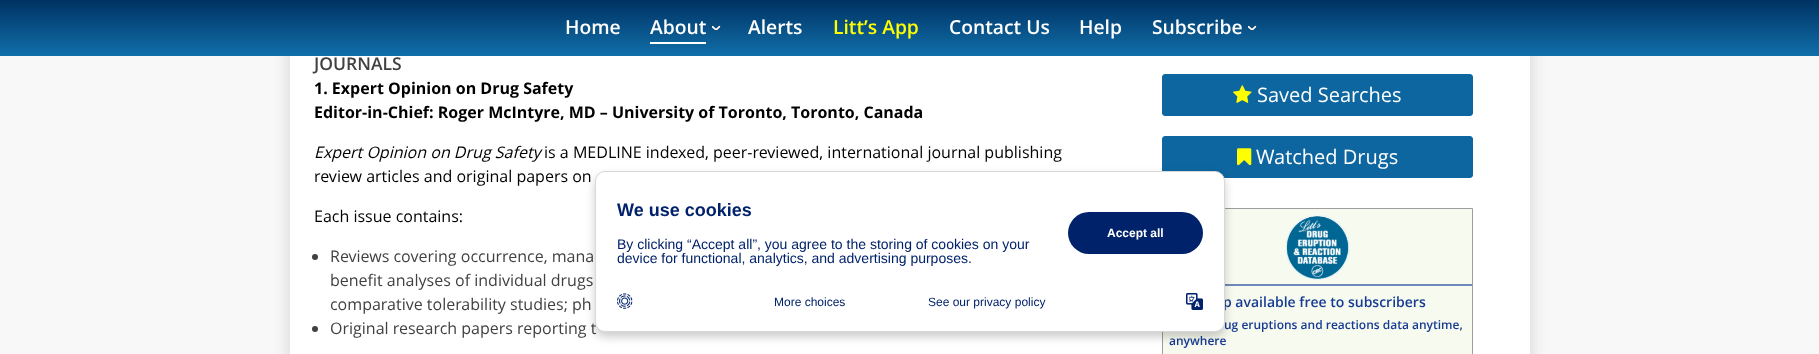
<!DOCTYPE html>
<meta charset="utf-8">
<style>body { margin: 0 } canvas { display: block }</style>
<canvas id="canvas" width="1819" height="354"></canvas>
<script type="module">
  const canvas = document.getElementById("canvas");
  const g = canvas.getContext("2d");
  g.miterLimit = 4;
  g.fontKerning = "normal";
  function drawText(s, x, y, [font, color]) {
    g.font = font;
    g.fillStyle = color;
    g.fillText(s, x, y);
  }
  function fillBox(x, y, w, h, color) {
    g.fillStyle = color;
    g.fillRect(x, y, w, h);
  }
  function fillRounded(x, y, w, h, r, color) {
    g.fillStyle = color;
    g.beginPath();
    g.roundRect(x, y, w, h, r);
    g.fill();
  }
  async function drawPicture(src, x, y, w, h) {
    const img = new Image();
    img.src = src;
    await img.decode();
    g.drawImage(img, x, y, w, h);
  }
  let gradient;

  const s1 = ["600 19.25px Open Sans", "#FFFFFF"];
  const s2 = ["600 19.25px Open Sans", "#FFFF00"];
  const s3 = ["600 17.5px Open Sans", "#414141"];
  const s4 = ["bold 16px Open Sans", "#000000"];
  const s5 = ["italic 16px Open Sans", "#000000"];
  const s6 = ["16px Open Sans", "#000000"];
  const s7 = ["16px Open Sans", "#414141"];
  const s8 = ["20px Open Sans", "#FFFFFF"];
  const s9 = ["600 14px Open Sans", "#173B93"];
  const s10 = ["600 12px Open Sans", "#173B93"];
  const s11 = ["bold 18px Liberation Sans", "#00226A"];
  const s12 = ["14px Liberation Sans", "#00226A"];
  const s13 = ["bold 12px Liberation Sans", "#FFFFFF"];
  const s14 = ["12px Liberation Sans", "#00226A"];

  fillBox(0, 0, 1819, 354, "#F8F8F8");
  g.fillStyle = "rgba(0, 0, 0, 0.15)";
  g.filter = "blur(9px)";
  g.beginPath();
  g.rect(290, -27, 1240, 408);
  g.fill();
  g.filter = "none";
  gradient = g.createLinearGradient(910, 56, 910, 0);
  gradient.addColorStop(0, "#106FA9");
  gradient.addColorStop(1, "#003263");
  g.fillStyle = gradient;
  g.fillRect(0, 0, 1819, 56);
  drawText("Home", 565, 34, s1);
  drawText("About", 650, 34, s1);
  fillBox(650, 42, 56, 2, "#FFFFFF");
  await drawPicture("pic1.png", 711, 25, 10, 6);
  drawText("Alerts", 748, 34, s1);
  drawText("Litt’s App", 833, 34, s2);
  drawText("Contact Us", 949, 34, s1);
  drawText("Help", 1079, 34, s1);
  drawText("Subscribe", 1152, 34, s1);
  await drawPicture("pic1.png", 1247, 25, 10, 6);
  fillBox(290, 56, 1240, 298, "#FFFFFF");
  drawText("JOURNALS", 314, 70, s3);
  drawText("1. Expert Opinion on Drug Safety", 314, 94, s4);
  drawText("Editor-in-Chief: Roger McIntyre, MD – University of Toronto, Toronto, Canada", 314, 118, s4);
  drawText("Expert Opinion on Drug Safety", 314, 158, s5);
  drawText("is a MEDLINE indexed, peer-reviewed, international journal publishing", 544, 158, s6);
  drawText("review articles and original papers on", 314, 182, s6);
  drawText("Each issue contains:", 314, 222, s6);
  g.fillStyle = "#414141";
  g.beginPath();
  g.arc(315, 257, 3, 0, Math.PI * 2);
  g.fill();
  drawText("Reviews covering occurrence, mana", 330, 262, s7);
  drawText("benefit analyses of individual drugs", 330, 286, s7);
  drawText("comparative tolerability studies; ph", 330, 310, s7);
  g.beginPath();
  g.arc(315, 329, 3, 0, Math.PI * 2);
  g.fill();
  drawText("Original research papers reporting t", 330, 334, s7);
  g.fillStyle = "#0D669F";
  g.beginPath();
  g.roundRect(1162.5, 74.5, 310, 41, 2.5);
  g.fill();
  g.strokeStyle = "#0D669F";
  g.stroke();
  await drawPicture("pic2.png", 1233, 85, 19, 18);
  drawText("Saved Searches", 1257, 102, s8);
  g.fillStyle = "#0D669F";
  g.beginPath();
  g.roundRect(1162.5, 136.5, 310, 41, 2.5);
  g.fill();
  g.stroke();
  await drawPicture("pic3.png", 1237, 148, 15, 18);
  drawText("Watched Drugs", 1256, 164, s8);
  g.fillStyle = "#F7FAEF";
  g.beginPath();
  g.rect(1162.5, 208.5, 310, 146);
  g.fill();
  g.strokeStyle = "#9E9E9E";
  g.stroke();
  fillBox(1225, 284, 247, 2, "#7189BA");
  await drawPicture("pic4.png", 1285, 215, 65, 65);
  drawText("p available free to subscribers", 1223, 307, s9);
  drawText("ug eruptions and reactions data anytime,", 1224, 329, s10);
  drawText("anywhere", 1169, 345, s10);
  g.fillStyle = "rgba(0, 0, 0, 0.2)";
  g.filter = "blur(5px)";
  g.beginPath();
  g.roundRect(595, 176, 630, 161, 10);
  g.fill();
  g.filter = "none";
  g.fillStyle = "#FFFFFF";
  g.beginPath();
  g.roundRect(595.5, 171.5, 629, 160, 9.5);
  g.fill();
  g.strokeStyle = "#D8D8D8";
  g.stroke();
  drawText("We use cookies", 617, 216, s11);
  drawText("By clicking “Accept all”, you agree to the storing of cookies on your", 617, 249, s12);
  drawText("device for functional, analytics, and advertising purposes.", 617, 263, s12);
  fillRounded(1068, 212, 135, 42, 21, "#00226A");
  drawText("Accept all", 1107, 237, s13);
  await drawPicture("pic5.png", 617, 293, 16, 16);
  drawText("More choices", 774, 306, s14);
  drawText("See our privacy policy", 928, 306, s14);
  await drawPicture("pic6.png", 1186, 293, 17, 17);
</script>
